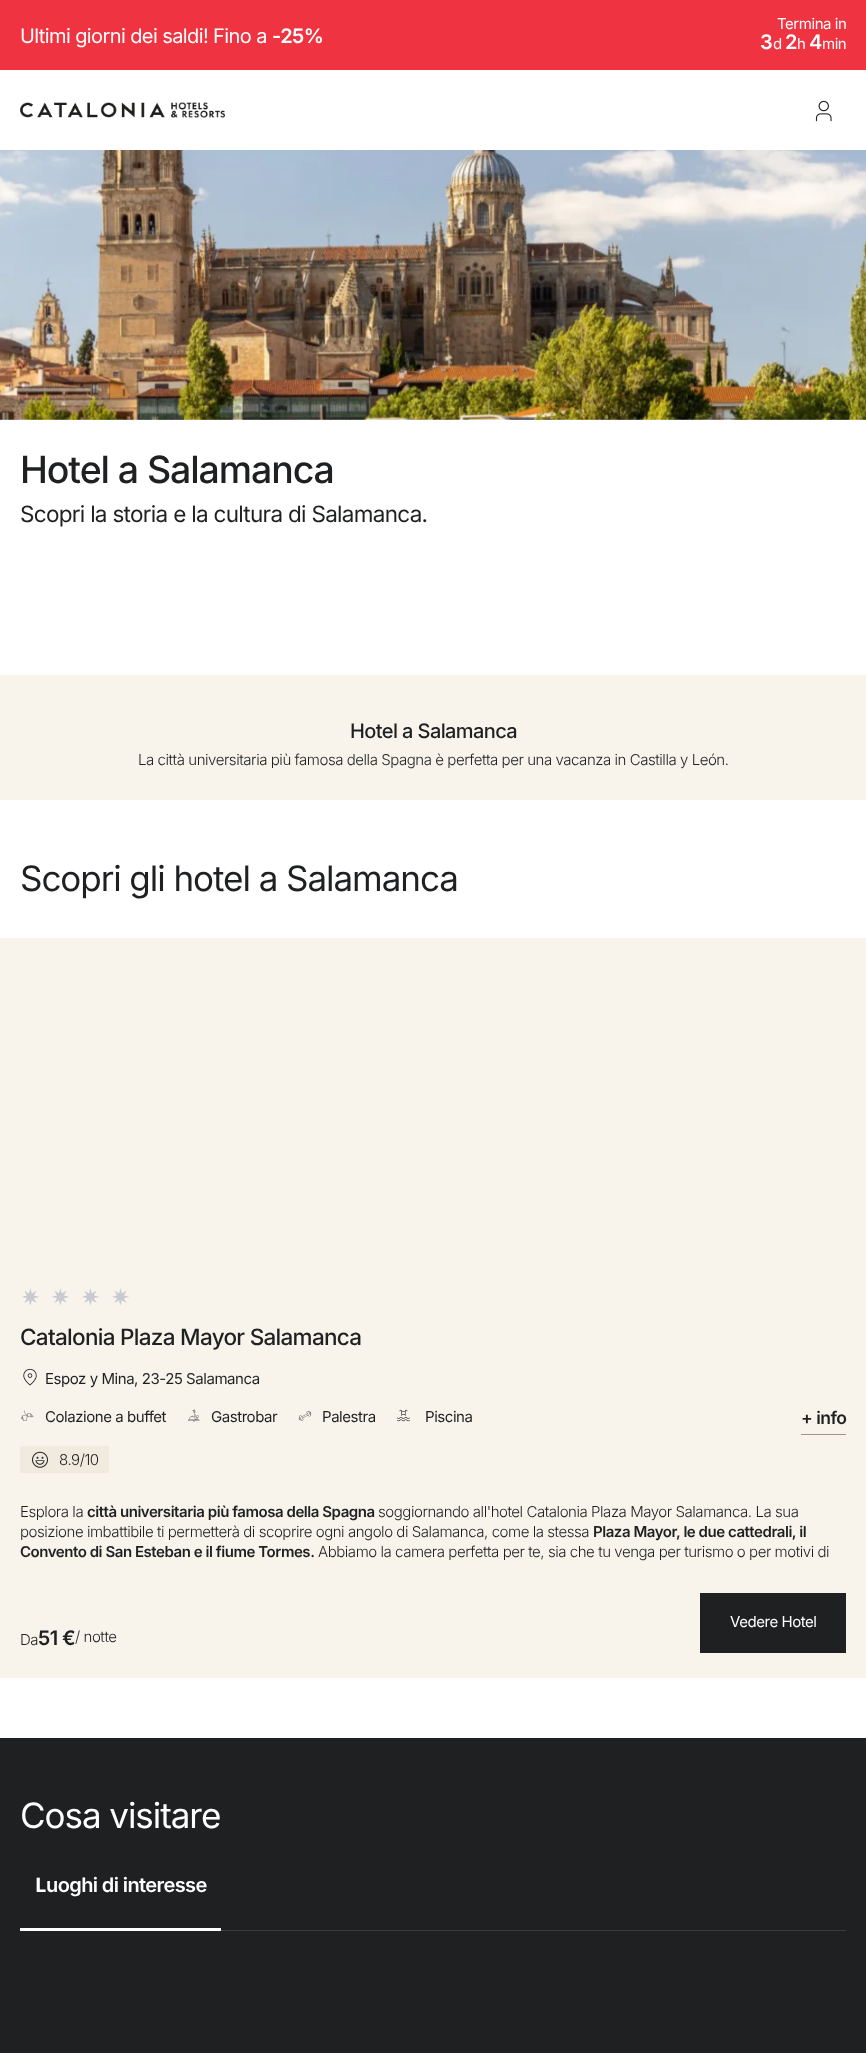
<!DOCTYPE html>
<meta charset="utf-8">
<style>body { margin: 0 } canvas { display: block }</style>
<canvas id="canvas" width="866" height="2053"></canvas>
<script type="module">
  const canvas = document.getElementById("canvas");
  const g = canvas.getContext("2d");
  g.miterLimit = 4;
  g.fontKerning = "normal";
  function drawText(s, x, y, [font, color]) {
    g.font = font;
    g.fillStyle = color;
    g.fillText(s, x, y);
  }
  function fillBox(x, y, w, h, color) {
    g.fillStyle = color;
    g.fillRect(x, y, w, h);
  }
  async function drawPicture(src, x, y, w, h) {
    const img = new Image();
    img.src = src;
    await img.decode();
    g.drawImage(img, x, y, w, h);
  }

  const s1 = ["20px Inter", "#FFFFFF"];
  const s2 = ["600 20px Inter", "#FFFFFF"];
  const s3 = ["15px Inter", "#FFFFFF"];
  const s4 = ["500 37.5px Inter", "#1F2022"];
  const s5 = ["22.5px Inter", "#1F2022"];
  const s6 = ["500 20px Inter", "#1F2022"];
  const s7 = ["300 15px Inter", "#1F2022"];
  const s8 = ["35px Inter", "#1F2022"];
  const s9 = ["500 22.5px Inter", "#1F2022"];
  const s10 = ["15px Inter", "#1F2022"];
  const s11 = ["600 17.5px Inter", "#1F2022"];
  const s12 = ["600 15px Inter", "#1F2022"];
  const s13 = ["600 20px Inter", "#1F2022"];
  const s14 = ["35px Inter", "#FFFFFF"];
  const s15 = ["bold 20px Noto Sans", "#FFFFFF"];

  fillBox(0, 0, 866, 2053, "#FFFFFF");
  fillBox(0, 0, 866, 70, "#EF3340");
  g.letterSpacing = "-0.6px";
  drawText("Ultimi giorni dei saldi! Fino a", 20, 43, s1);
  drawText("-25%", 272, 43, s2);
  g.letterSpacing = "-0.45px";
  drawText("Termina in", 777, 29, s3);
  g.letterSpacing = "-0.6px";
  drawText("3", 760, 49, s2);
  g.letterSpacing = "-0.45px";
  drawText("d", 773, 49, s3);
  g.letterSpacing = "-0.6px";
  drawText("2", 785, 49, s2);
  g.letterSpacing = "-0.45px";
  drawText("h", 797, 49, s3);
  g.letterSpacing = "-0.6px";
  drawText("4", 809, 49, s2);
  g.letterSpacing = "-0.45px";
  drawText("min", 822, 49, s3);
  await drawPicture("pic1.png", 20, 102, 205, 16);
  await drawPicture("pic2.png", 815, 100, 17, 22);
  await drawPicture("pic3.png", 0, 150, 866, 270);
  g.letterSpacing = "-1.1px";
  drawText("Hotel a Salamanca", 20, 483, s4);
  g.letterSpacing = "-0.7px";
  drawText("Scopri la storia e la cultura di Salamanca.", 20, 522, s5);
  fillBox(0, 675, 866, 125, "#F8F4EC");
  g.letterSpacing = "-0.6px";
  drawText("Hotel a Salamanca", 350, 738, s6);
  g.letterSpacing = "-0.45px";
  drawText("La città universitaria più famosa della Spagna è perfetta per una vacanza in Castilla y León.", 138, 765, s7);
  g.letterSpacing = "-1.05px";
  drawText("Scopri gli hotel a Salamanca", 20, 891, s8);
  fillBox(0, 938, 866, 740, "#F8F4EC");
  await drawPicture("pic4.png", 22, 1288, 17, 18);
  await drawPicture("pic4.png", 52, 1288, 17, 18);
  await drawPicture("pic4.png", 82, 1288, 17, 18);
  await drawPicture("pic4.png", 112, 1288, 17, 18);
  g.letterSpacing = "-0.7px";
  drawText("Catalonia Plaza Mayor Salamanca", 20, 1345, s9);
  await drawPicture("pic5.png", 23, 1368, 14, 18);
  g.letterSpacing = "-0.45px";
  drawText("Espoz y Mina, 23-25 Salamanca", 45, 1384, s10);
  await drawPicture("pic6.png", 21, 1410, 13, 11);
  drawText("Colazione a buffet", 45, 1422, s10);
  await drawPicture("pic7.png", 188, 1409, 12, 13);
  drawText("Gastrobar", 211, 1422, s10);
  await drawPicture("pic8.png", 298, 1411, 14, 10);
  drawText("Palestra", 322, 1422, s10);
  await drawPicture("pic9.png", 397, 1409, 13, 13);
  drawText("Piscina", 425, 1422, s10);
  g.letterSpacing = "-0.5px";
  drawText("+ info", 801, 1424, s11);
  fillBox(801, 1434, 45, 1, "#A09582");
  fillBox(20, 1446, 89, 27, "#F1EADF");
  await drawPicture("pic10.png", 32, 1451, 16, 17);
  g.letterSpacing = "-0.45px";
  drawText("8.9/10", 59, 1465, s7);
  drawText("Esplora la", 20, 1517, s7);
  drawText("città universitaria più famosa della Spagna", 87, 1517, s12);
  drawText("soggiornando all'hotel Catalonia Plaza Mayor Salamanca. La sua", 378, 1517, s7);
  drawText("posizione imbattibile ti permetterà di scoprire ogni angolo di Salamanca, come la stessa", 20, 1537, s7);
  drawText("Plaza Mayor, le due cattedrali, il", 593, 1537, s12);
  drawText("Convento di San Esteban e il fiume Tormes.", 20, 1557, s12);
  drawText("Abbiamo la camera perfetta per te, sia che tu venga per turismo o per motivi di", 318, 1557, s7);
  fillBox(700, 1593, 146, 60, "#1F2022");
  drawText("Vedere Hotel", 730, 1627, s3);
  drawText("Da", 20, 1645, s7);
  g.letterSpacing = "-0.6px";
  drawText("51 €", 38, 1645, s13);
  g.letterSpacing = "-0.45px";
  drawText("/ notte", 75, 1642, s7);
  fillBox(0, 1738, 866, 315, "#1F2022");
  g.letterSpacing = "-1.05px";
  drawText("Cosa visitare", 20, 1828, s14);
  fillBox(221, 1930, 625, 1, "#3D3C3B");
  g.letterSpacing = "-0.6px";
  drawText("L", 35, 1892, s15);
  drawText("uoghi di interesse", 46, 1892, s2);
  fillBox(20, 1928, 201, 3, "#FFFFFF");
</script>
